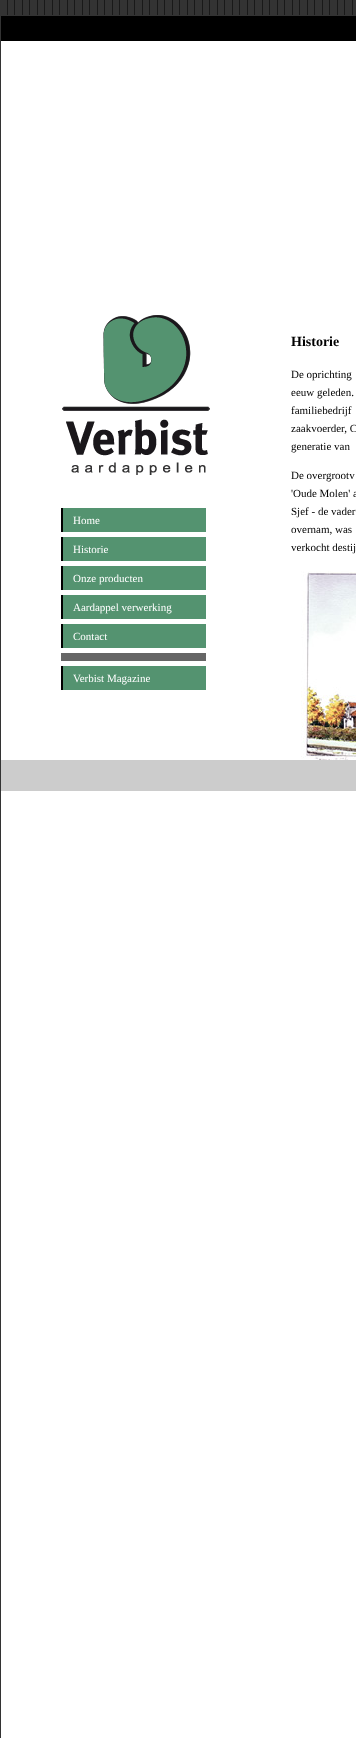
<!DOCTYPE html>
<meta charset="utf-8">
<style>body { margin: 0 } canvas { display: block }</style>
<canvas id="canvas" width="356" height="1738"></canvas>
<script type="module">
  const canvas = document.getElementById("canvas");
  const g = canvas.getContext("2d");
  g.miterLimit = 4;
  g.fontKerning = "normal";
  function drawText(s, x, y, [font, color]) {
    g.font = font;
    g.fillStyle = color;
    g.fillText(s, x, y);
  }
  function fillBox(x, y, w, h, color) {
    g.fillStyle = color;
    g.fillRect(x, y, w, h);
  }
  async function drawPicture(src, x, y, w, h) {
    const img = new Image();
    img.src = src;
    await img.decode();
    g.drawImage(img, x, y, w, h);
  }

  const s1 = ["bold 14px Liberation Serif", "#000000"];
  const s2 = ["11px Liberation Serif", "#000000"];
  const s3 = ["11px Liberation Serif", "#FFFFFF"];

  fillBox(0, 0, 356, 1738, "#FFFFFF");
  await drawPicture("pic1.png", 0, 0, 356, 15);
  g.strokeStyle = "#333333";
  g.strokeRect(0.5, 15.5, 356, 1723);
  fillBox(1, 16, 355, 25, "#000000");
  drawText("Historie", 291, 346, s1);
  drawText("De oprichting", 291, 378, s2);
  drawText("eeuw geleden.", 291, 396, s2);
  drawText("familiebedrijf", 291, 414, s2);
  drawText("zaakvoerder, C", 291, 432, s2);
  drawText("generatie van", 291, 450, s2);
  drawText("De overgrootv", 291, 479, s2);
  drawText("'Oude Molen' a", 291, 497, s2);
  drawText("Sjef - de vader", 291, 515, s2);
  drawText("overnam, was", 291, 533, s2);
  drawText("verkocht destij", 291, 551, s2);
  await drawPicture("pic2.png", 301, 571, 55, 189);
  await drawPicture("pic3.png", 62, 315, 148, 160);
  fillBox(63, 508, 143, 24, "#549370");
  fillBox(61, 508, 2, 24, "#000000");
  drawText("Home", 73, 524, s3);
  fillBox(63, 537, 143, 24, "#549370");
  fillBox(61, 537, 2, 24, "#000000");
  drawText("Historie", 73, 553, s3);
  fillBox(63, 566, 143, 24, "#549370");
  fillBox(61, 566, 2, 24, "#000000");
  drawText("Onze producten", 73, 582, s3);
  fillBox(63, 595, 143, 24, "#549370");
  fillBox(61, 595, 2, 24, "#000000");
  drawText("Aardappel verwerking", 73, 611, s3);
  fillBox(63, 624, 143, 24, "#549370");
  fillBox(61, 624, 2, 24, "#000000");
  drawText("Contact", 73, 640, s3);
  fillBox(61, 653, 145, 8, "#666666");
  fillBox(63, 666, 143, 24, "#549370");
  fillBox(61, 666, 2, 24, "#000000");
  drawText("Verbist Magazine", 73, 682, s3);
  fillBox(1, 760, 355, 31, "#CCCCCC");
</script>
